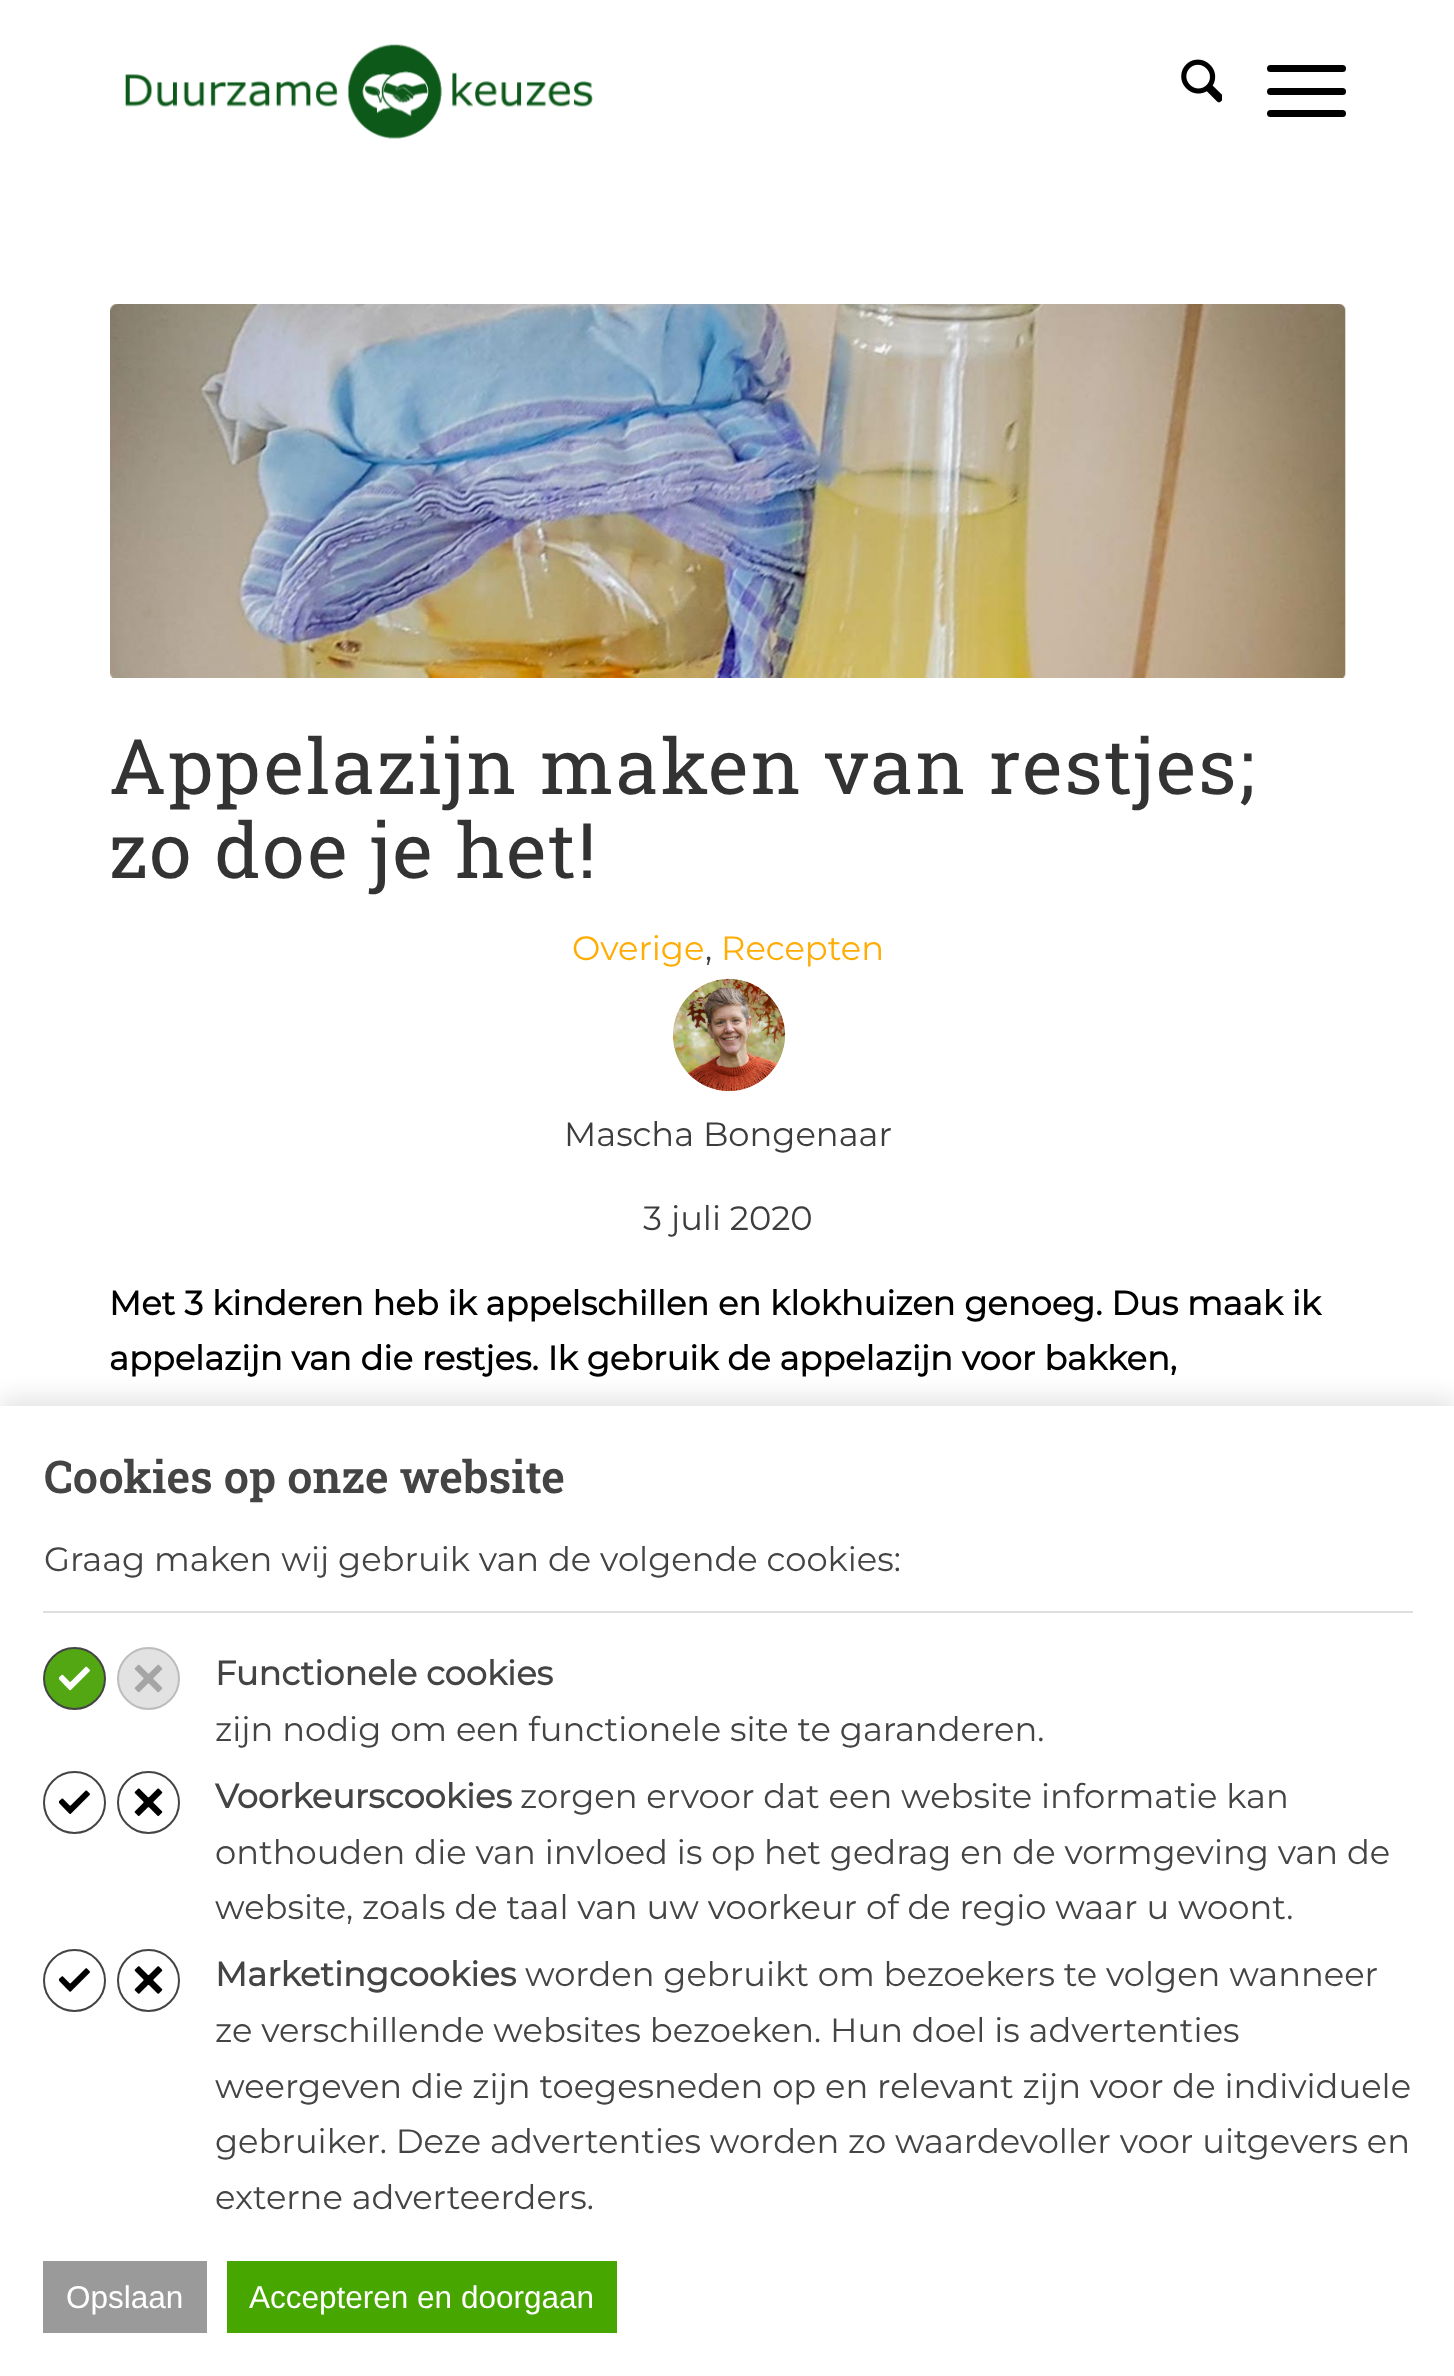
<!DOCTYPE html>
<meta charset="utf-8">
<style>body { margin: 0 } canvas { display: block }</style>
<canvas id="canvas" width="1454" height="2376"></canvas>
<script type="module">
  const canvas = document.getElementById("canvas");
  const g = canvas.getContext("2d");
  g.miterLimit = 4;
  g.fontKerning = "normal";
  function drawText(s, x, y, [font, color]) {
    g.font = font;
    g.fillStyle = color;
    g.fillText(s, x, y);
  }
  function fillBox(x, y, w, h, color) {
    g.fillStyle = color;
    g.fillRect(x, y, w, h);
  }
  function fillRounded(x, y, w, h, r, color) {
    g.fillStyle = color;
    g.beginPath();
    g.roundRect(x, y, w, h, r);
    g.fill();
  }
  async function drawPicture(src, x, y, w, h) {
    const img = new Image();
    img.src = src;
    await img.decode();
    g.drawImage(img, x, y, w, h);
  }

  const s1 = ["76.5px Roboto Slab", "#333333"];
  const s2 = ["100 33.75px Montserrat", "#FFAC05"];
  const s3 = ["100 33.75px Montserrat", "#3D3D3D"];
  const s4 = ["bold 33.75px Montserrat", "#000000"];
  const s5 = ["600 45px Roboto Slab", "#444444"];
  const s6 = ["100 33.75px Montserrat", "#444444"];
  const s7 = ["bold 33.75px Montserrat", "#444444"];
  const s8 = ["31.5px Liberation Sans", "#FFFFFF"];

  fillBox(0, 0, 1454, 2376, "#FFFFFF");
  await drawPicture("pic1.png", 125, 44, 468, 95);
  await drawPicture("pic2.png", 1181, 59, 41, 44);
  fillRounded(1267, 88, 79, 7, 3.5, "#000000");
  fillRounded(1267, 65, 79, 7, 3.5, "#000000");
  fillRounded(1267, 110, 79, 7, 3.5, "#000000");
  await drawPicture("pic3.png", 110, 304, 1236, 374);
  g.letterSpacing = "2.25px";
  drawText("Appelazijn maken van restjes;", 109, 794, s1);
  drawText("zo doe je het!", 109, 878, s1);
  g.letterSpacing = "0px";
  drawText("Overige", 572, 960, s2);
  drawText(",", 705, 960, s3);
  drawText("Recepten", 721, 960, s2);
  await drawPicture("pic4.png", 672, 978, 114, 114);
  drawText("Mascha Bongenaar", 564, 1146, s3);
  drawText("3 juli 2020", 643, 1230, s3);
  drawText("Met 3 kinderen heb ik appelschillen en klokhuizen genoeg. Dus maak ik", 109, 1315, s4);
  drawText("appelazijn van die restjes. Ik gebruik de appelazijn voor bakken,", 109, 1370, s4);
  g.fillStyle = "rgba(0, 0, 0, 0.1)";
  g.filter = "blur(11px)";
  g.beginPath();
  g.rect(0, 1397, 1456, 970);
  g.fill();
  g.filter = "none";
  fillBox(0, 1406, 1454, 970, "#FFFFFF");
  drawText("Cookies op onze website", 44, 1493, s5);
  fillBox(43, 1611, 1370, 2, "#DEDEDE");
  drawText("Graag maken wij gebruik van de volgende cookies:", 44, 1571, s6);
  g.fillStyle = "#53A713";
  g.beginPath();
  g.arc(74.5, 1678.5, 30.5, 0, Math.PI * 2);
  g.fill();
  g.strokeStyle = "#444444";
  g.lineWidth = 2;
  g.stroke();
  await drawPicture("pic5.png", 59, 1666, 31, 25);
  g.fillStyle = "#E2E2E2";
  g.beginPath();
  g.arc(148.5, 1678.5, 30.5, 0, Math.PI * 2);
  g.fill();
  g.strokeStyle = "#BDBDBD";
  g.stroke();
  await drawPicture("pic6.png", 134, 1664, 29, 29);
  drawText("Functionele cookies", 215, 1685, s7);
  drawText("zijn nodig om een functionele site te garanderen.", 215, 1741, s6);
  g.beginPath();
  g.arc(74.5, 1802.5, 30.5, 0, Math.PI * 2);
  g.strokeStyle = "#444444";
  g.stroke();
  await drawPicture("pic7.png", 59, 1790, 31, 24);
  g.beginPath();
  g.arc(148.5, 1802.5, 30.5, 0, Math.PI * 2);
  g.stroke();
  await drawPicture("pic8.png", 134, 1788, 29, 28);
  drawText("Voorkeurscookies", 215, 1808, s7);
  drawText("zorgen ervoor dat een website informatie kan", 520, 1808, s6);
  drawText("onthouden die van invloed is op het gedrag en de vormgeving van de", 215, 1864, s6);
  drawText("website, zoals de taal van uw voorkeur of de regio waar u woont.", 215, 1919, s6);
  g.beginPath();
  g.arc(74.5, 1980.5, 30.5, 0, Math.PI * 2);
  g.stroke();
  await drawPicture("pic9.png", 59, 1968, 31, 24);
  g.beginPath();
  g.arc(148.5, 1980.5, 30.5, 0, Math.PI * 2);
  g.stroke();
  await drawPicture("pic10.png", 134, 1966, 29, 28);
  drawText("Marketingcookies", 215, 1986, s7);
  drawText("worden gebruikt om bezoekers te volgen wanneer", 525, 1986, s6);
  drawText("ze verschillende websites bezoeken. Hun doel is advertenties", 215, 2042, s6);
  drawText("weergeven die zijn toegesneden op en relevant zijn voor de individuele", 215, 2098, s6);
  drawText("gebruiker. Deze advertenties worden zo waardevoller voor uitgevers en", 215, 2153, s6);
  drawText("externe adverteerders.", 215, 2209, s6);
  fillBox(43, 2261, 164, 72, "#9A9A9A");
  drawText("Opslaan", 66, 2308, s8);
  fillBox(227, 2261, 390, 72, "#47A700");
  drawText("Accepteren en doorgaan", 249, 2308, s8);
</script>
